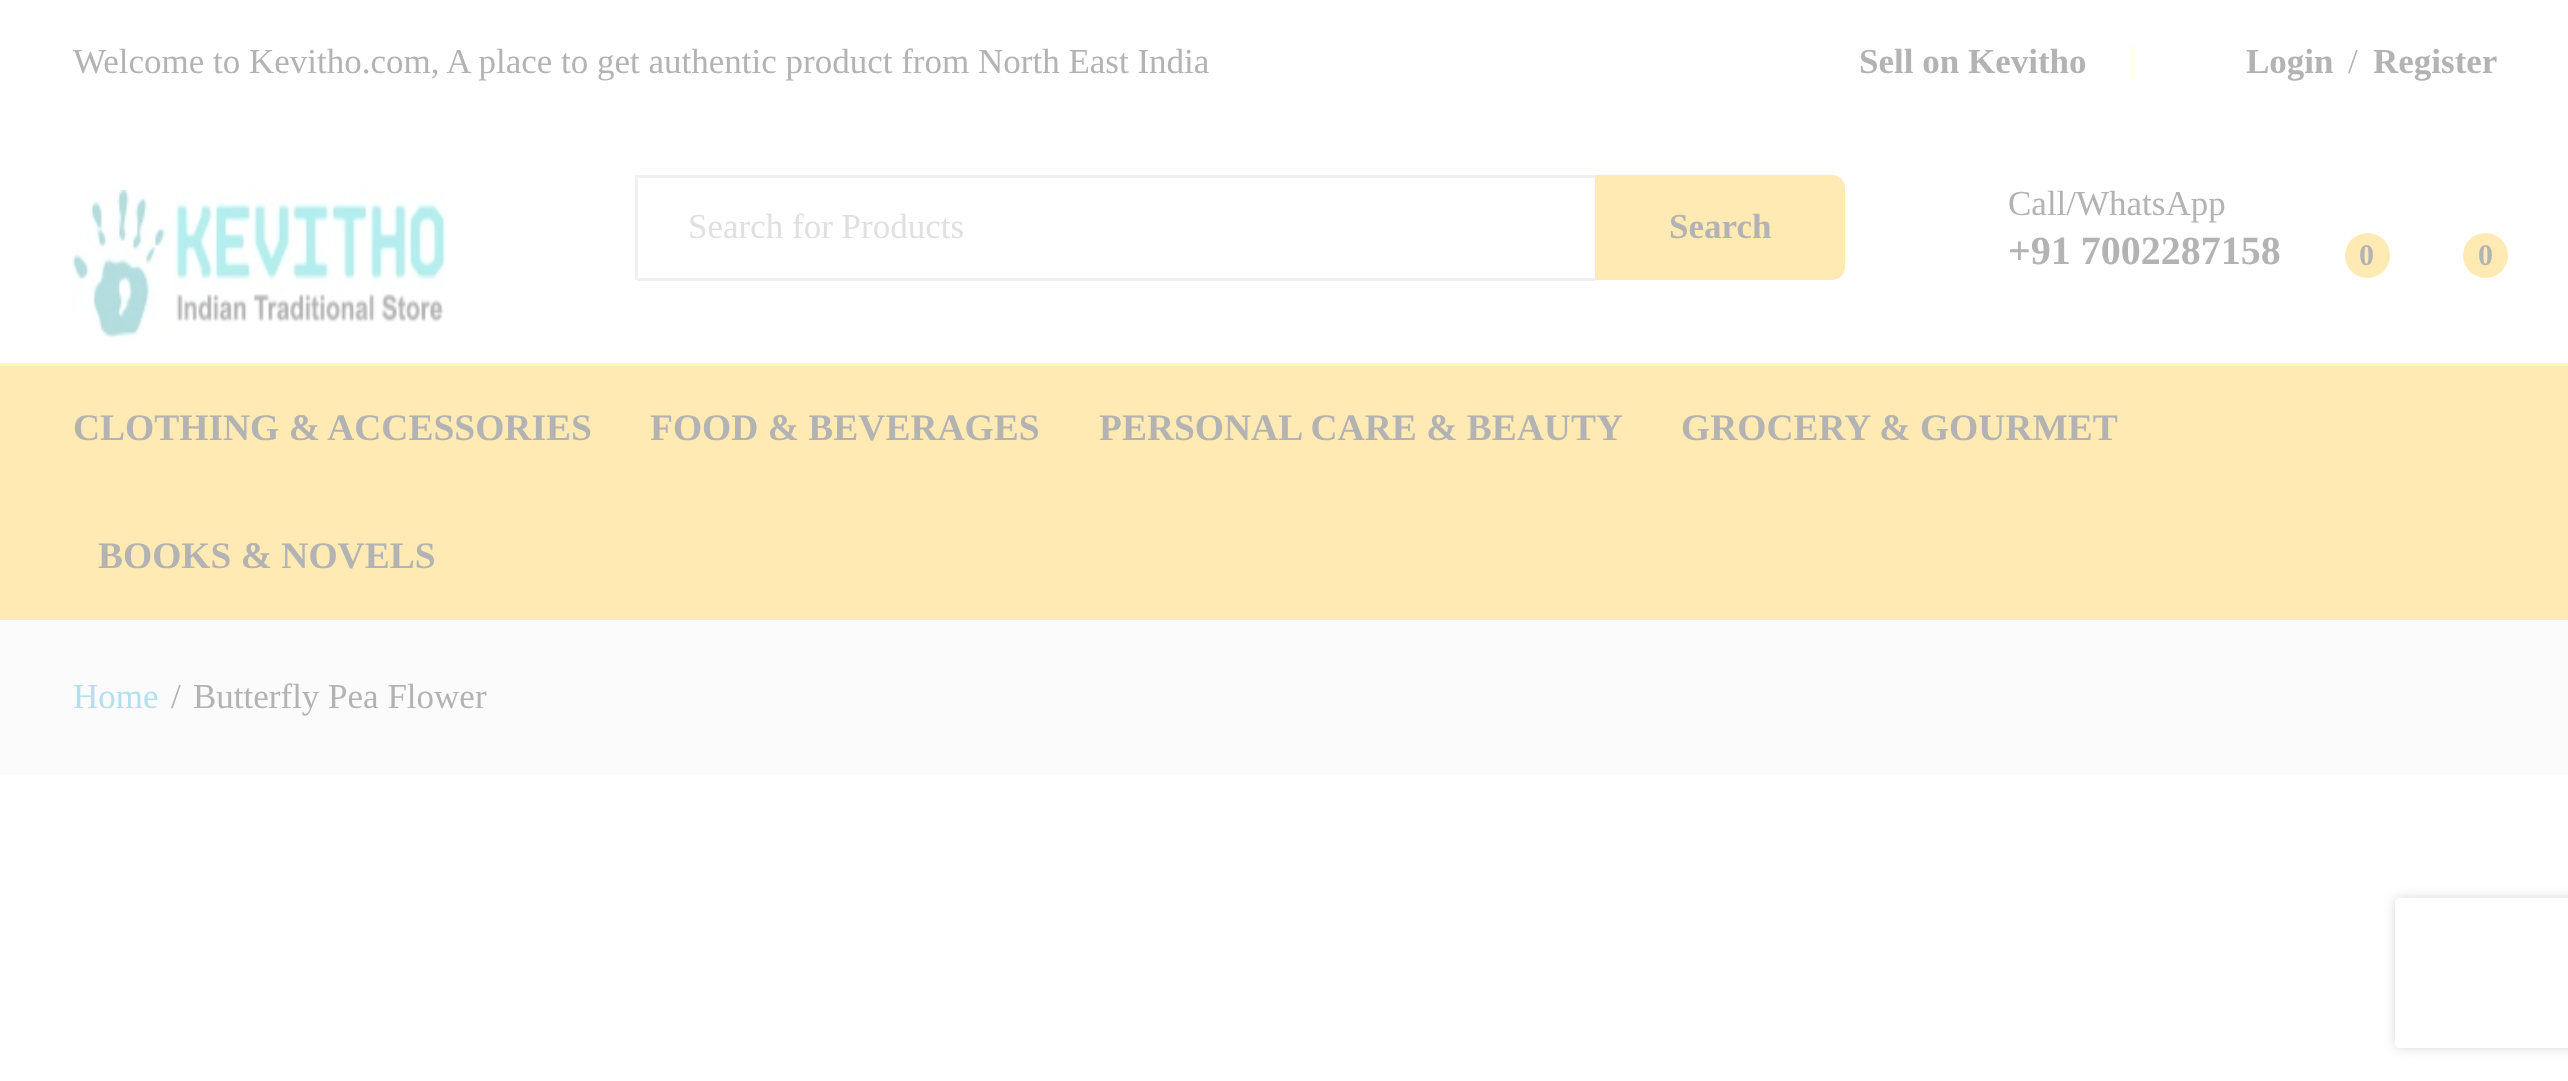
<!DOCTYPE html>
<meta charset="utf-8">
<style>body { margin: 0 } canvas { display: block }</style>
<canvas id="canvas" width="2568" height="1081"></canvas>
<script type="module">
  const canvas = document.getElementById("canvas");
  const g = canvas.getContext("2d");
  g.miterLimit = 4;
  g.fontKerning = "normal";
  function drawText(s, x, y, [font, color]) {
    g.font = font;
    g.fillStyle = color;
    g.fillText(s, x, y);
  }
  function fillBox(x, y, w, h, color) {
    g.fillStyle = color;
    g.fillRect(x, y, w, h);
  }
  async function drawPicture(src, x, y, w, h) {
    const img = new Image();
    img.src = src;
    await img.decode();
    g.drawImage(img, x, y, w, h);
  }

  const s1 = ["35px Liberation Serif", "#B3B3B3"];
  const s2 = ["bold 35px Liberation Serif", "#B3B3B3"];
  const s3 = ["35px Liberation Serif", "#E0E0E0"];
  const s4 = ["bold 40px Liberation Serif", "#B3B3B3"];
  const s5 = ["bold 30px Liberation Serif", "#B3B3B3"];
  const s6 = ["bold 37.5px Liberation Serif", "#B3B3B3"];
  const s7 = ["35px Liberation Serif", "#B3E0F0"];

  fillBox(0, 0, 2568, 1081, "#FFFFFF");
  drawText("Welcome to Kevitho.com, A place to get authentic product from North East India", 73, 73, s1);
  drawText("Sell on Kevitho", 1859, 73, s2);
  fillBox(2130, 45, 5, 35, "#FFFFEB");
  drawText("Login", 2246, 73, s2);
  drawText("/", 2348, 73, s1);
  drawText("Register", 2373, 73, s2);
  await drawPicture("pic1.png", 72, 190, 374, 148);
  fillBox(635, 175, 3, 105, "#F0F0F0");
  fillBox(638, 175, 957, 3, "#F0F0F0");
  fillBox(638, 278, 957, 3, "#F0F0F0");
  drawText("Search for Products", 688, 238, s3);
  g.fillStyle = "#FFEAB3";
  g.beginPath();
  g.roundRect(1595, 175, 250, 105, [0, 13, 13, 0]);
  g.fill();
  drawText("Search", 1669, 238, s2);
  drawText("Call/WhatsApp", 2008, 215, s1);
  drawText("+91 7002287158", 2008, 264, s4);
  g.fillStyle = "#FFEAB3";
  g.beginPath();
  g.arc(2367.5, 255.5, 22.5, 0, Math.PI * 2);
  g.fill();
  drawText("0", 2359, 265, s5);
  g.fillStyle = "#FFEAB3";
  g.beginPath();
  g.arc(2485.5, 255.5, 22.5, 0, Math.PI * 2);
  g.fill();
  drawText("0", 2478, 265, s5);
  fillBox(0, 366, 2568, 254, "#FFEAB3");
  fillBox(0, 363, 2568, 3, "#FAFAB9");
  drawText("CLOTHING & ACCESSORIES", 73, 440, s6);
  drawText("FOOD & BEVERAGES", 650, 440, s6);
  drawText("PERSONAL CARE & BEAUTY", 1099, 440, s6);
  drawText("GROCERY & GOURMET", 1681, 440, s6);
  drawText("BOOKS & NOVELS", 98, 568, s6);
  fillBox(0, 620, 2568, 155, "#FBFBFB");
  drawText("Home", 73, 708, s7);
  drawText("/", 171, 708, s1);
  drawText("Butterfly Pea Flower", 193, 708, s1);
  g.save();
  g.beginPath();
  g.moveTo(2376, 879);
  g.lineTo(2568, 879);
  g.lineTo(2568, 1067);
  g.lineTo(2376, 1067);
  g.closePath();
  g.moveTo(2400, 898);
  g.lineTo(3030, 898);
  g.bezierCurveTo(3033, 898, 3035, 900, 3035, 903);
  g.lineTo(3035, 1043);
  g.bezierCurveTo(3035, 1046, 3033, 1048, 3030, 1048);
  g.lineTo(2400, 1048);
  g.bezierCurveTo(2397, 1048, 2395, 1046, 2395, 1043);
  g.lineTo(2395, 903);
  g.bezierCurveTo(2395, 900, 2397, 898, 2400, 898);
  g.closePath();
  g.clip("evenodd");
  g.fillStyle = "#D9D9D9";
  g.filter = "blur(6px)";
  g.beginPath();
  g.roundRect(2395, 898, 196, 150, 5);
  g.fill();
  g.filter = "none";
  g.restore();
</script>
